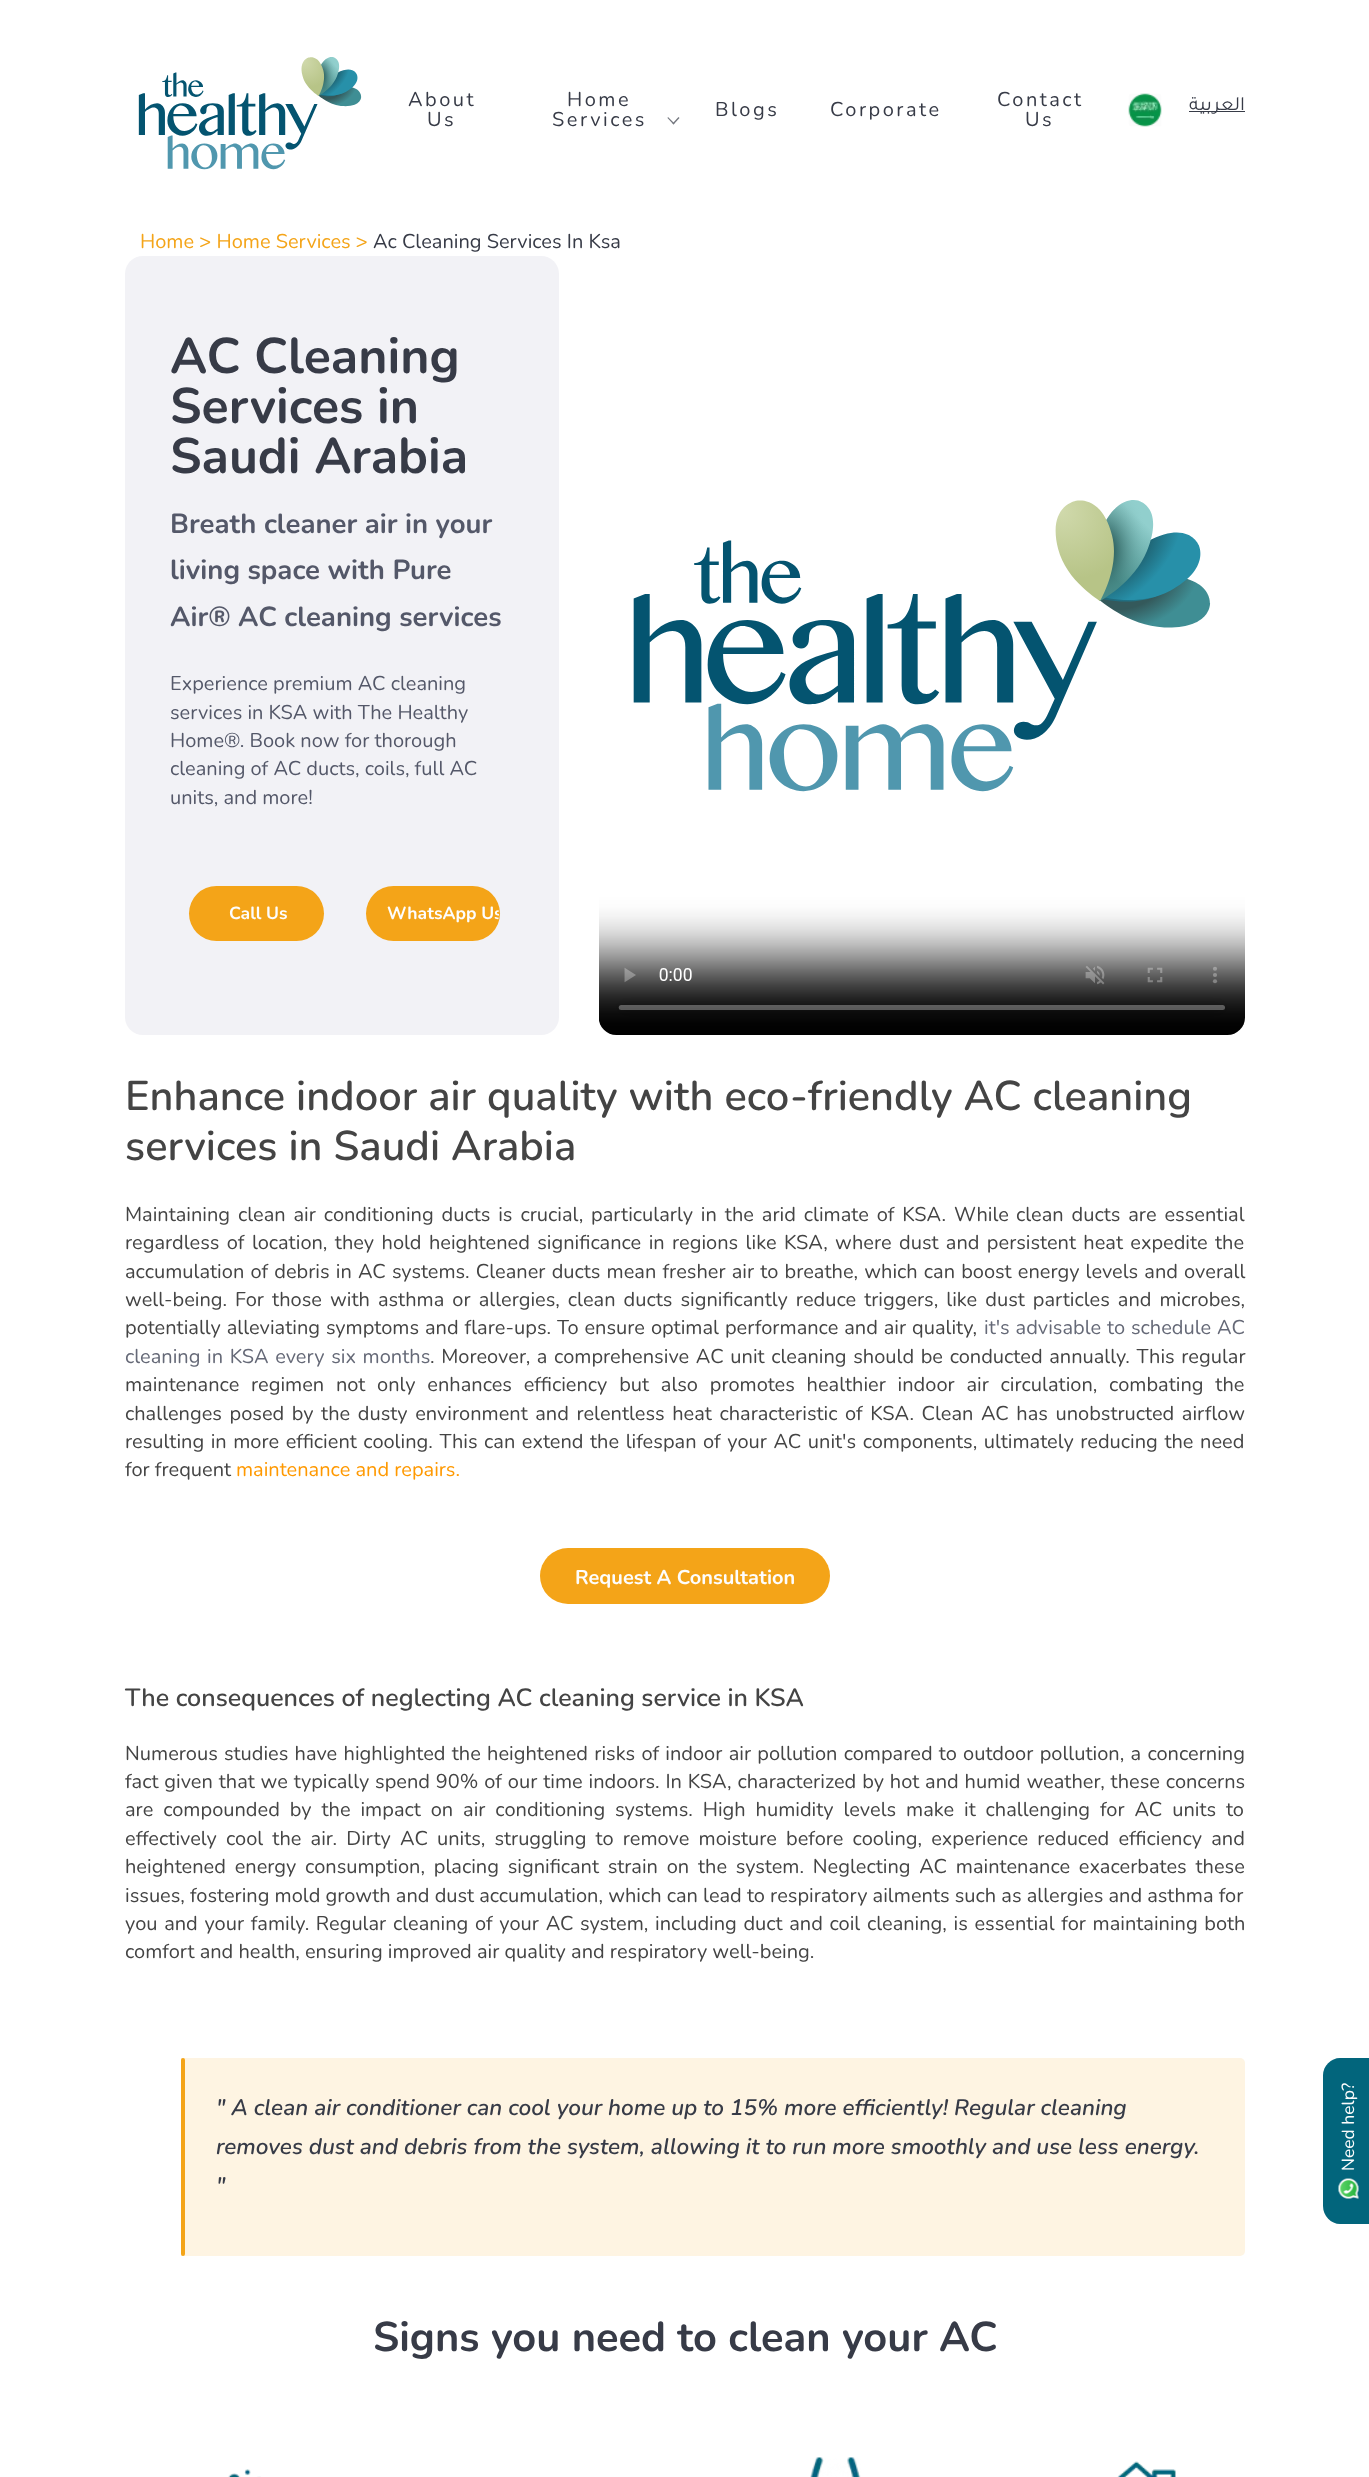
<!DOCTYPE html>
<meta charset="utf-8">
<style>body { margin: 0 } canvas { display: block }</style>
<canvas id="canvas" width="1369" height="2477"></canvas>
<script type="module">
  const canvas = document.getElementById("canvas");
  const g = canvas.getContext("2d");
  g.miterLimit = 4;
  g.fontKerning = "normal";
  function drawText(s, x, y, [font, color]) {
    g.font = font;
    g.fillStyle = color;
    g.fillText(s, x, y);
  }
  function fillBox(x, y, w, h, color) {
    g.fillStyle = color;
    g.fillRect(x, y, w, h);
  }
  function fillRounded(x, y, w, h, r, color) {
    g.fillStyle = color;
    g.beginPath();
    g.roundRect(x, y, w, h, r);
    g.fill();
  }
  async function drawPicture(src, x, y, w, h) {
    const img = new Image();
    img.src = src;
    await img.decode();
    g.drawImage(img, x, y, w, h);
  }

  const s1 = ["20px Nunito", "#373B47"];
  const s2 = ["20px Tajawal", "#373B47"];
  const s3 = ["20px Nunito", "#F4A418"];
  const s4 = ["bold 50px Nunito", "#373B47"];
  const s5 = ["bold 27.5px Nunito", "#545869"];
  const s6 = ["20px Nunito", "#545869"];
  const s7 = ["bold 17.5px Nunito", "#FDFDFD"];
  const s8 = ["600 41.6px Nunito", "#444444"];
  const s9 = ["20px Nunito", "#444444"];
  const s10 = ["20px Nunito", "#656977"];
  const s11 = ["20px Nunito", "#FF9900"];
  const s12 = ["bold 20px Nunito", "#FDFDFD"];
  const s13 = ["600 25px Nunito", "#444444"];
  const s14 = ["italic 600 22.5px Nunito", "#373B47"];
  const s15 = ["bold 41.6px Nunito", "#373B47"];

  fillBox(0, 0, 1369, 2477, "#FFFFFF");
  await drawPicture("pic1.png", 138, 57, 224, 113);
  g.letterSpacing = "2.5px";
  drawText("About", 408, 106, s1);
  drawText("Us", 427, 126, s1);
  drawText("Home", 567, 106, s1);
  drawText("Services", 552, 126, s1);
  g.fillStyle = "#73767E";
  g.beginPath();
  g.moveTo(678.5, 117);
  g.lineTo(679.5, 118);
  g.lineTo(673.5, 124.5);
  g.lineTo(672.5, 123.5);
  g.closePath();
  g.fill();
  g.beginPath();
  g.moveTo(668, 117);
  g.lineTo(674.5, 123.5);
  g.lineTo(673.5, 124.5);
  g.lineTo(667.5, 118);
  g.closePath();
  g.fill();
  drawText("Blogs", 715, 116, s1);
  drawText("Corporate", 830, 116, s1);
  drawText("Contact", 997, 106, s1);
  drawText("Us", 1025, 126, s1);
  await drawPicture("pic2.png", 1128, 93, 34, 34);
  fillBox(1189, 111, 56, 1, "#373B47");
  g.letterSpacing = "0px";
  g.direction = "rtl";
  drawText("العربية", 1245, 110, s2);
  g.direction = "ltr";
  drawText("Home > Home Services >", 140, 248, s3);
  drawText("Ac Cleaning Services In Ksa", 373, 248, s1);
  fillRounded(125, 256, 434, 779, 18, "#F2F2F6");
  drawText("AC Cleaning", 170, 373, s4);
  drawText("Services in", 170, 423, s4);
  drawText("Saudi Arabia", 170, 473, s4);
  drawText("Breath cleaner air in your", 170, 533, s5);
  drawText("living space with Pure", 170, 579, s5);
  drawText("Air® AC cleaning services", 170, 626, s5);
  drawText("Experience premium AC cleaning", 170, 690, s6);
  drawText("services in KSA with The Healthy", 170, 719, s6);
  drawText("Home®. Book now for thorough", 170, 747, s6);
  drawText("cleaning of AC ducts, coils, full AC", 170, 775, s6);
  drawText("units, and more!", 170, 804, s6);
  fillRounded(189, 886, 135, 55, 27.5, "#F4A418");
  drawText("Call Us", 229, 919, s7);
  fillRounded(366, 886, 134, 55, 27.5, "#F4A418");
  g.save();
  g.beginPath();
  g.roundRect(368, 888, 131, 52, 26);
  g.clip();
  drawText("WhatsApp Us", 387, 919, s7);
  g.restore();
  await drawPicture("pic3.png", 599, 500, 646, 535);
  drawText("Enhance indoor air quality with eco-friendly AC cleaning", 125, 1110, s8);
  drawText("services in Saudi Arabia", 125, 1160, s8);
  g.wordSpacing = "2.75px";
  drawText("Maintaining clean air conditioning ducts is crucial, particularly in the arid climate of KSA. While", 125, 1221, s9);
  drawText("clean ducts are essential", 1016, 1221, s9);
  g.wordSpacing = "2.25px";
  drawText("regardless of location, they hold heightened significance in regions like KSA, where dust and persistent heat expedite the", 125, 1249, s9);
  g.wordSpacing = "1px";
  drawText("accumulation of debris in AC systems. Cleaner ducts mean fresher air to breathe, which can boost energy levels and overall", 125, 1278, s9);
  g.wordSpacing = "2.9px";
  drawText("well-being. For those with asthma or allergies, clean ducts significantly reduce triggers, like dust particles and microbes,", 125, 1306, s9);
  g.wordSpacing = "0.75px";
  drawText("potentially alleviating symptoms and flare-ups. To ensure optimal performance and air quality,", 125, 1334, s9);
  drawText("it's advisable to schedule AC", 984, 1334, s10);
  g.wordSpacing = "1.5px";
  drawText("cleaning in KSA every six months", 125, 1363, s10);
  drawText(". Moreover, a comprehensive AC unit cleaning should be conducted annually. This regular", 430, 1363, s9);
  g.wordSpacing = "6.6px";
  drawText("maintenance regimen not only enhances efficiency but also promotes healthier indoor air circulation, combating the", 125, 1391, s9);
  g.wordSpacing = "2.4px";
  drawText("challenges posed by the dusty environment and relentless heat characteristic of KSA. Clean AC has unobstructed airflow", 125, 1420, s9);
  g.wordSpacing = "1.4px";
  drawText("resulting in more efficient cooling. This can extend the lifespan of your AC unit's components, ultimately reducing the need", 125, 1448, s9);
  g.wordSpacing = "0px";
  drawText("for frequent", 125, 1476, s9);
  drawText("maintenance and repairs.", 236, 1476, s11);
  fillRounded(540, 1548, 290, 56, 28, "#F4A418");
  drawText("Request A Consultation", 575, 1584, s12);
  drawText("The consequences of neglecting AC cleaning service in KSA", 125, 1706, s13);
  g.wordSpacing = "1.1px";
  drawText("Numerous studies have highlighted the heightened risks of indoor air pollution compared to outdoor pollution, a concerning", 125, 1760, s9);
  g.wordSpacing = "0.7px";
  drawText("fact given that we typically spend 90% of our time indoors. In KSA, characterized by hot and humid weather, these concerns", 125, 1788, s9);
  g.wordSpacing = "4.75px";
  drawText("are compounded by the impact on air conditioning systems. High humidity levels make it challenging for AC units to", 125, 1816, s9);
  g.wordSpacing = "4px";
  drawText("effectively cool the air. Dirty AC units, struggling to remove moisture before cooling, experience reduced efficiency and", 125, 1845, s9);
  g.wordSpacing = "3.6px";
  drawText("heightened energy consumption, placing significant strain on the system. Neglecting AC maintenance exacerbates these", 125, 1873, s9);
  g.wordSpacing = "0px";
  drawText("issues, fostering mold growth and dust accumulation, which can lead to respiratory ailments such as allergies and asthma for", 125, 1902, s9);
  g.wordSpacing = "1.5px";
  drawText("you and your family. Regular cleaning of your AC system, including duct and coil cleaning, is essential for maintaining both", 125, 1930, s9);
  g.wordSpacing = "0px";
  drawText("comfort and health, ensuring improved air quality and respiratory well-being.", 125, 1958, s9);
  g.fillStyle = "#FEF4E2";
  g.beginPath();
  g.roundRect(181, 2058, 1064, 198, [0, 5, 5, 0]);
  g.fill();
  fillRounded(181, 2058, 4, 198, 2, "#F4A418");
  drawText("\" A clean air conditioner can cool your home up to 15% more efficiently! Regular cleaning", 216, 2115, s14);
  drawText("removes dust and debris from the system, allowing it to run more smoothly and use less energy.", 216, 2154, s14);
  drawText("\"", 216, 2193, s14);
  g.fillStyle = "#02657C";
  g.beginPath();
  g.moveTo(1323, 2206);
  g.lineTo(1323, 2075);
  g.bezierCurveTo(1323, 2066, 1331, 2058, 1340, 2058);
  g.lineTo(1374, 2058);
  g.lineTo(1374, 2224);
  g.lineTo(1340, 2224);
  g.bezierCurveTo(1331, 2224, 1323, 2216, 1323, 2206);
  g.closePath();
  g.fill();
  g.font = "17.5px Nunito";
  g.fillStyle = "#FDFDFD";
  g.save();
  g.translate(1354, 2171);
  g.rotate(-90 * Math.PI / 180);
  g.fillText("Need help?", 0, 0);
  g.restore();
  await drawPicture("pic4.png", 1338, 2178, 21, 21);
  drawText("Signs you need to clean your AC", 373, 2351, s15);
  await drawPicture("pic5.png", 228, 2469, 33, 8);
  await drawPicture("pic6.png", 810, 2457, 51, 20);
  await drawPicture("pic7.png", 1117, 2461, 59, 16);
</script>
